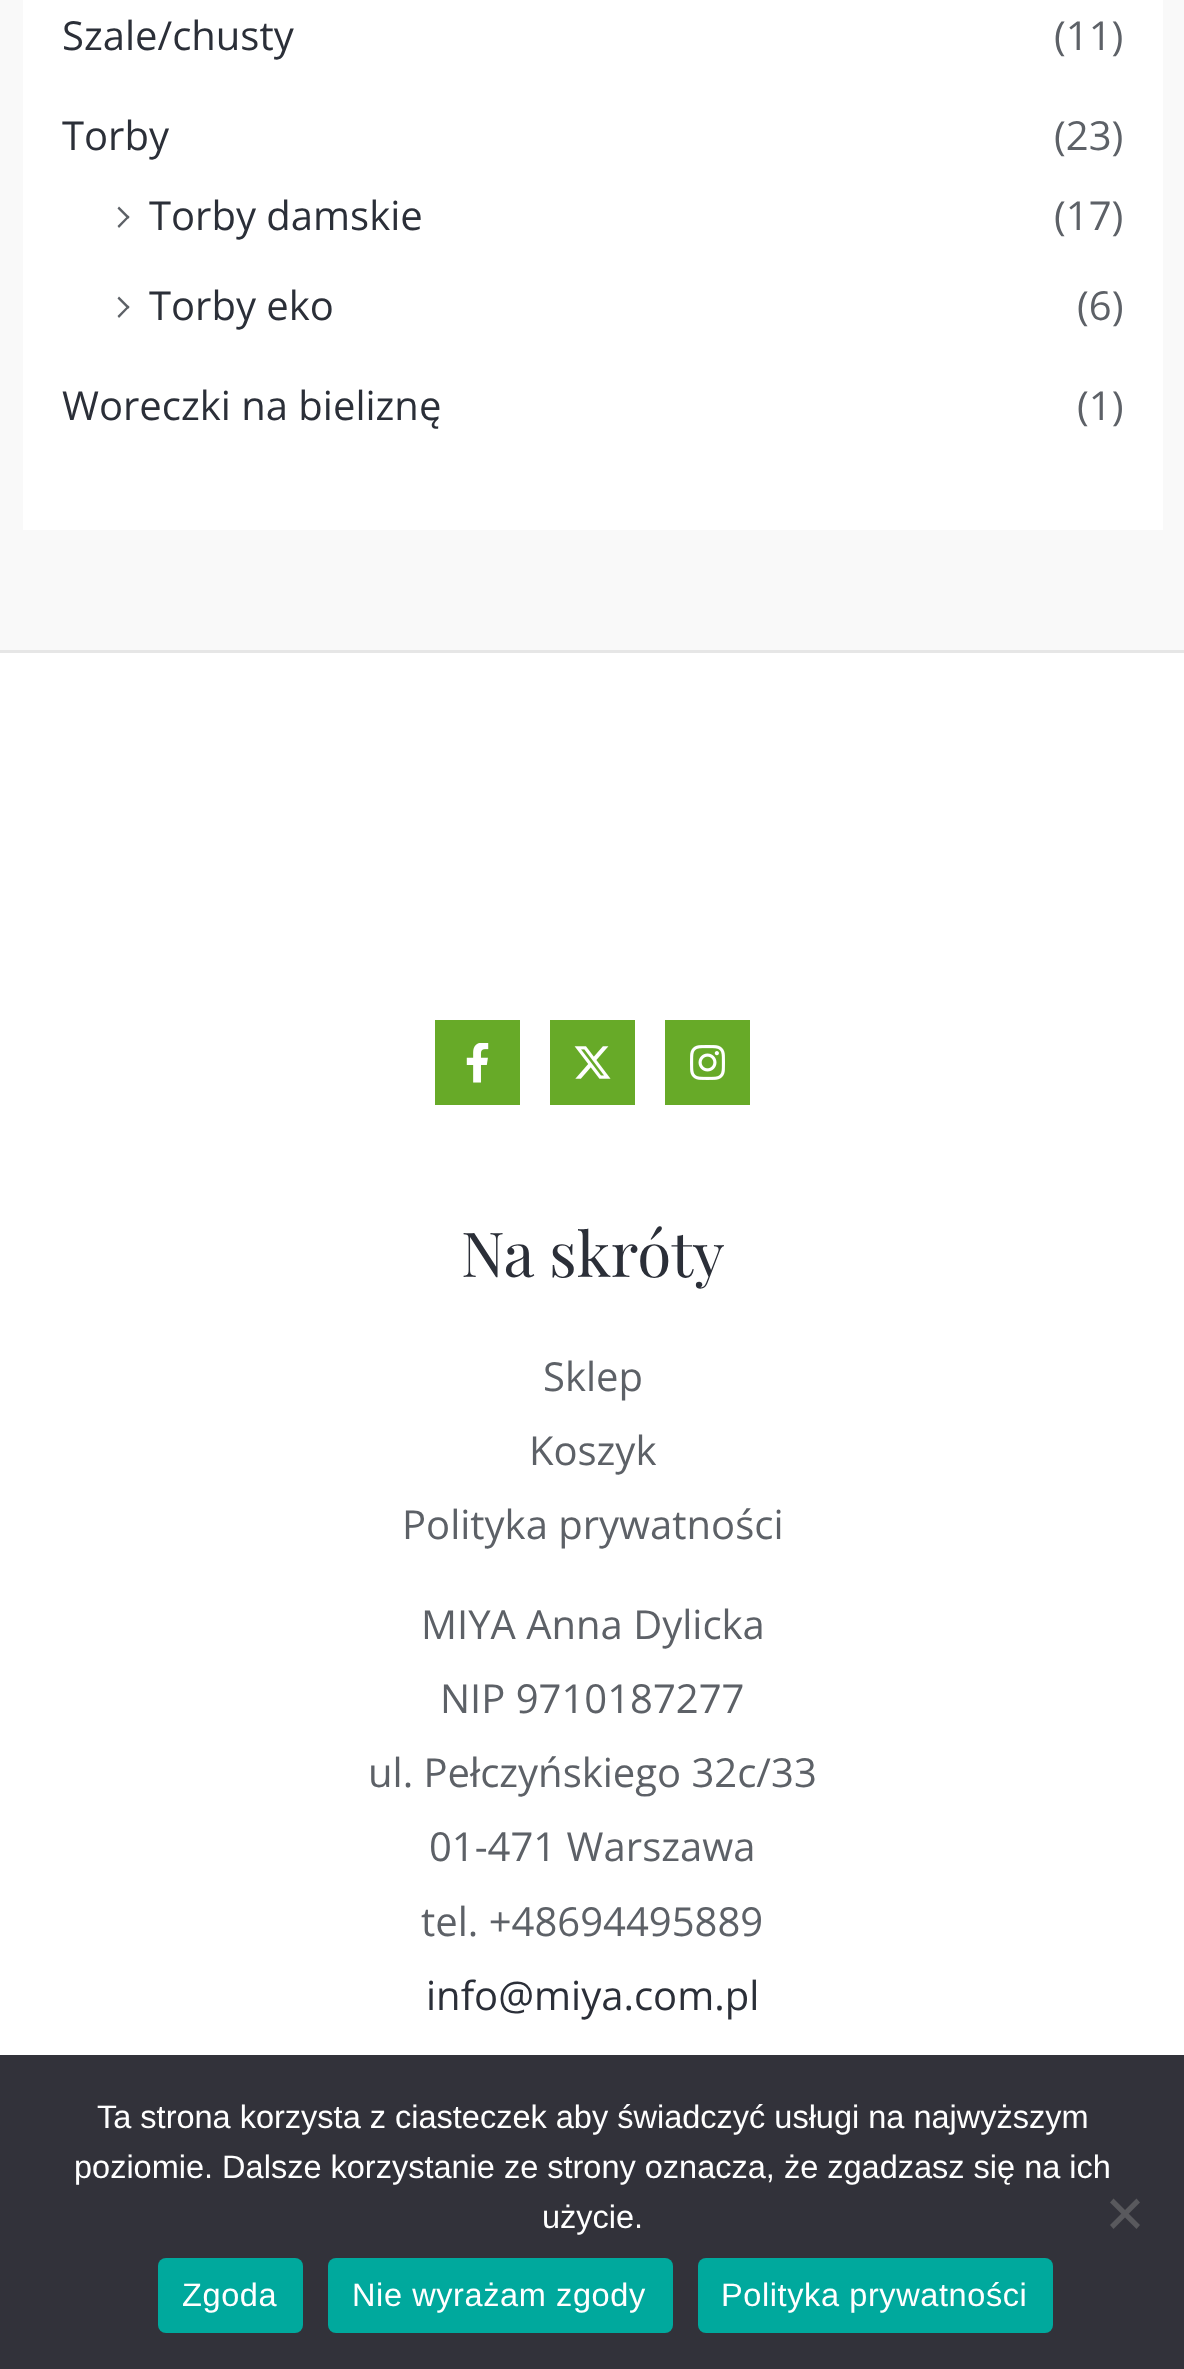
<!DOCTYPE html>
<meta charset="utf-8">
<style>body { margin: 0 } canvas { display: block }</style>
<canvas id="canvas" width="1184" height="2369"></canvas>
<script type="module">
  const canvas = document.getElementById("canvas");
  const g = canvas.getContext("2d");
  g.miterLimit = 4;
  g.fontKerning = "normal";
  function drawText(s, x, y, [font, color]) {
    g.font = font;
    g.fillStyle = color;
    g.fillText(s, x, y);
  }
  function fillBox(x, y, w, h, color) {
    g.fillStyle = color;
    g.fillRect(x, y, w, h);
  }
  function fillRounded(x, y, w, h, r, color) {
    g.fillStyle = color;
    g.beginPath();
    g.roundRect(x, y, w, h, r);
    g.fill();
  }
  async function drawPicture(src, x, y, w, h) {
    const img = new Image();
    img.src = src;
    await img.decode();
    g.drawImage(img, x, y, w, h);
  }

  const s1 = ["40px Open Sans", "#2B2F38"];
  const s2 = ["40px Open Sans", "#5D6167"];
  const s3 = ["62px Playfair Display", "#2B2F38"];
  const s4 = ["32.5px Liberation Sans", "#FFFFFF"];

  fillBox(0, 0, 1184, 2369, "#F9F9F9");
  fillBox(23, 0, 1140, 530, "#FFFFFF");
  drawText("Szale/chusty", 62, 50, s1);
  drawText("(11)", 1054, 50, s2);
  drawText("Torby", 62, 150, s1);
  drawText("(23)", 1054, 150, s2);
  g.beginPath();
  g.moveTo(119, 206.5);
  g.lineTo(129.5, 217);
  g.lineTo(128, 219);
  g.lineTo(117.5, 208.5);
  g.closePath();
  g.fill();
  g.beginPath();
  g.moveTo(128, 215.5);
  g.lineTo(129.5, 217);
  g.lineTo(119, 228);
  g.lineTo(117.5, 226);
  g.closePath();
  g.fill();
  drawText("Torby damskie", 149, 230, s1);
  drawText("(17)", 1054, 230, s2);
  g.beginPath();
  g.moveTo(119, 296.5);
  g.lineTo(129.5, 307);
  g.lineTo(128, 309);
  g.lineTo(117.5, 298.5);
  g.closePath();
  g.fill();
  g.beginPath();
  g.moveTo(128, 305.5);
  g.lineTo(129.5, 307);
  g.lineTo(119, 318);
  g.lineTo(117.5, 316);
  g.closePath();
  g.fill();
  drawText("Torby eko", 149, 320, s1);
  drawText("(6)", 1077, 320, s2);
  drawText("Woreczki na bieliznę", 62, 420, s1);
  drawText("(1)", 1077, 420, s2);
  fillBox(0, 653, 1184, 1402, "#FFFFFF");
  fillBox(0, 650, 1184, 3, "#E6E6E6");
  fillBox(435, 1020, 85, 85, "#67AA28");
  await drawPicture("pic1.png", 466, 1043, 23, 40);
  fillBox(550, 1020, 85, 85, "#67AA28");
  await drawPicture("pic2.png", 574, 1046, 37, 33);
  fillBox(665, 1020, 85, 85, "#67AA28");
  await drawPicture("pic3.png", 690, 1045, 35, 35);
  drawText("Na skróty", 461, 1277, s3);
  drawText("Sklep", 543, 1391, s2);
  drawText("Koszyk", 529, 1465, s2);
  drawText("Polityka prywatności", 402, 1539, s2);
  drawText("MIYA Anna Dylicka", 421, 1639, s2);
  drawText("NIP 9710187277", 440, 1713, s2);
  drawText("ul. Pełczyńskiego 32c/33", 368, 1787, s2);
  drawText("01-471 Warszawa", 429, 1861, s2);
  drawText("tel. +48694495889", 421, 1936, s2);
  drawText("info@miya.com.pl", 426, 2010, s1);
  fillBox(0, 2055, 1184, 314, "#32323A");
  drawText("Ta strona korzysta z ciasteczek aby świadczyć usługi na najwyższym", 97, 2128, s4);
  drawText("poziomie. Dalsze korzystanie ze strony oznacza, że zgadzasz się na ich", 74, 2178, s4);
  drawText("użycie.", 542, 2228, s4);
  g.fillStyle = "#59595D";
  g.beginPath();
  g.moveTo(1136.5, 2198.5);
  g.lineTo(1140, 2202.5);
  g.lineTo(1113.5, 2229);
  g.lineTo(1110, 2225);
  g.closePath();
  g.fill();
  g.beginPath();
  g.moveTo(1110, 2202.5);
  g.lineTo(1113.5, 2198.5);
  g.lineTo(1140, 2225);
  g.lineTo(1136.5, 2229);
  g.closePath();
  g.fill();
  fillRounded(158, 2258, 145, 75, 8, "#00A99D");
  g.letterSpacing = "0.6px";
  drawText("Zgoda", 182, 2306, s4);
  fillRounded(328, 2258, 345, 75, 8, "#00A99D");
  drawText("Nie wyrażam zgody", 352, 2306, s4);
  fillRounded(698, 2258, 355, 75, 8, "#00A99D");
  drawText("Polityka prywatności", 721, 2306, s4);
</script>
